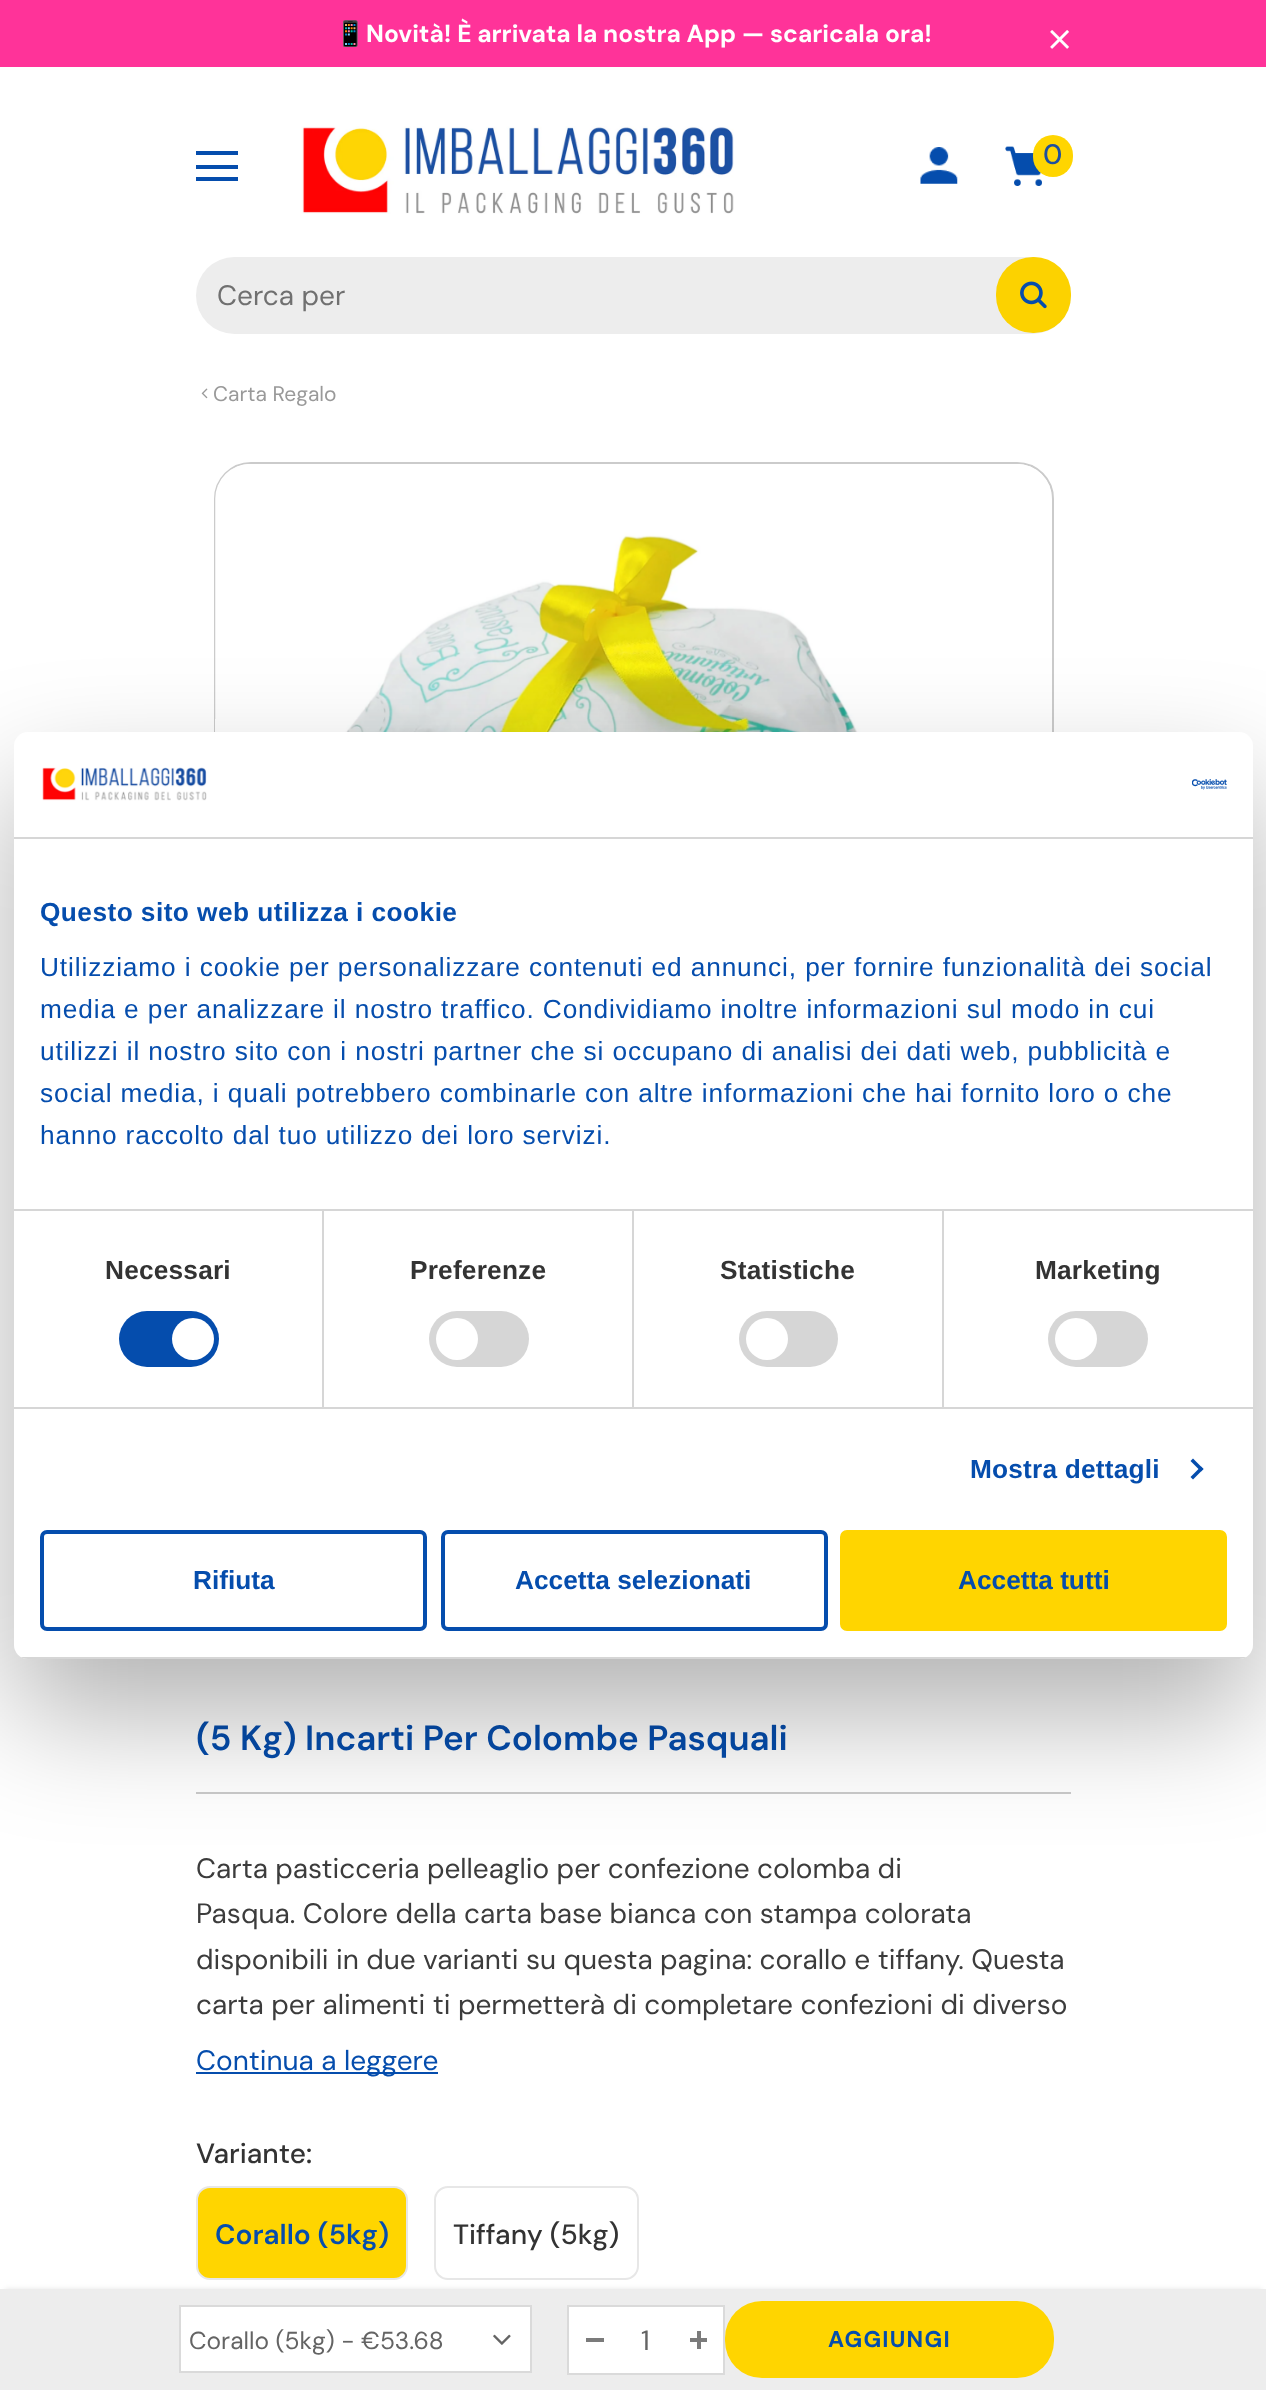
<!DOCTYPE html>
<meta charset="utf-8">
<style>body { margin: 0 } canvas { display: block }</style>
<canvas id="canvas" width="1266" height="2390"></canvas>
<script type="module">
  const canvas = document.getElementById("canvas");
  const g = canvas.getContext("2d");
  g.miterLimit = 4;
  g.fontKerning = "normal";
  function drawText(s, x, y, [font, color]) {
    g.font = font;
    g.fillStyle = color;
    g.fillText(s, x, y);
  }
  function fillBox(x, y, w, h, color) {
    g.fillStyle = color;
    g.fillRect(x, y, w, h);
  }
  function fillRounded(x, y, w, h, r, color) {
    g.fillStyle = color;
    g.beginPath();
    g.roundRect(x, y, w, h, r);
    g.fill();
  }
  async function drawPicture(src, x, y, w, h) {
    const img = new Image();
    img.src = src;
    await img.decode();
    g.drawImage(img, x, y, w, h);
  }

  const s1 = ["bold 24.5px Noto Color Emoji", "#FFFFFF"];
  const s2 = ["bold 24.5px DM Sans", "#FFFFFF"];
  const s3 = ["500 28px DM Sans", "#1D4F9F"];
  const s4 = ["28px DM Sans", "#707070"];
  const s5 = ["21px DM Sans", "#999999"];
  const s6 = ["600 35px DM Sans", "#054DAD"];
  const s7 = ["28px DM Sans", "#3C3C3C"];
  const s8 = ["28px DM Sans", "#054DAD"];
  const s9 = ["500 28px DM Sans", "#333333"];
  const s10 = ["600 28px DM Sans", "#054DAD"];
  const s11 = ["24.5px DM Sans", "#646464"];
  const s12 = ["28px DM Sans", "#646464"];
  const s13 = ["bold 22.75px DM Sans", "#054DAD"];
  const s14 = ["bold 26.25px Liberation Sans", "#054DAD"];
  const s15 = ["26.25px Liberation Sans", "#054DAD"];
  const s16 = ["bold 26.25px Liberation Sans", "#333333"];

  fillBox(0, 0, 1266, 2390, "#FFFFFF");
  fillBox(0, 0, 1266, 67, "#FF3399");
  drawText("📱", 335, 42, s1);
  drawText("Novità! È arrivata la nostra App — scaricala ora!", 366, 42, s2);
  await drawPicture("pic1.png", 1050, 30, 19, 19);
  fillBox(196, 151, 42, 4, "#054DAD");
  fillBox(196, 165, 42, 4, "#054DAD");
  fillBox(196, 177, 42, 4, "#054DAD");
  await drawPicture("pic2.png", 301, 126, 433, 88);
  await drawPicture("pic3.png", 920, 147, 38, 37);
  await drawPicture("pic4.png", 1005, 146, 37, 40);
  fillRounded(1033, 135, 40, 42, 20, "#FFD500");
  drawText("0", 1043, 164, s3);
  fillRounded(196, 257, 875, 77, 38.5, "#EDEDED");
  drawText("Cerca per", 217, 305, s4);
  fillRounded(996, 257, 75, 76, 37, "#FCD200");
  await drawPicture("pic5.png", 1020, 281, 27, 28);
  await drawPicture("pic6.png", 201, 388, 7, 11);
  drawText("Carta Regalo", 213, 401, s5);
  g.beginPath();
  g.roundRect(215, 463, 838, 838, 36);
  g.strokeStyle = "#CBCBCB";
  g.lineWidth = 2;
  g.stroke();
  await drawPicture("pic7.png", 215, 464, 837, 268);
  drawText("(5 Kg) Incarti Per Colombe Pasquali", 196, 1750, s6);
  fillBox(196, 1792, 875, 2, "#CBCBCB");
  drawText("Carta pasticceria pelleaglio per confezione colomba di", 196, 1878, s7);
  drawText("Pasqua. Colore della carta base bianca con stampa colorata", 196, 1923, s7);
  drawText("disponibili in due varianti su questa pagina: corallo e tiffany. Questa", 196, 1969, s7);
  drawText("carta per alimenti ti permetterà di completare confezioni di diverso", 196, 2014, s7);
  fillBox(196, 2072, 242, 2, "#054DAD");
  drawText("Continua a leggere", 196, 2070, s8);
  drawText("Variante:", 196, 2163, s9);
  g.fillStyle = "#FFD500";
  g.beginPath();
  g.roundRect(197, 2187, 210, 92, 13);
  g.fill();
  g.strokeStyle = "#E7E7E7";
  g.stroke();
  drawText("Corallo (5kg)", 215, 2244, s10);
  g.beginPath();
  g.roundRect(435, 2187, 203, 92, 13);
  g.stroke();
  drawText("Tiffany (5kg)", 453, 2244, s9);
  g.fillStyle = "rgba(0, 0, 0, 0.1)";
  g.filter = "blur(2.5px)";
  g.beginPath();
  g.rect(5, 2289, 1257, 91);
  g.fill();
  g.filter = "none";
  fillBox(0, 2289, 1266, 101, "#EDEDED");
  g.fillStyle = "#FFFFFF";
  g.beginPath();
  g.rect(180, 2306, 351, 66);
  g.fill();
  g.strokeStyle = "#DADADA";
  g.stroke();
  drawText("Corallo (5kg) - €53.68", 189, 2349, s11);
  await drawPicture("pic8.png", 493, 2334, 18, 11);
  g.fillStyle = "#FFFFFF";
  g.beginPath();
  g.rect(568, 2306, 156, 68);
  g.fill();
  g.stroke();
  fillBox(586, 2338, 18, 4, "#7B7B7B");
  drawText("1", 641, 2350, s12);
  fillBox(690, 2338, 17, 4, "#7B7B7B");
  fillBox(697, 2331, 4, 18, "#7B7B7B");
  fillRounded(725, 2301, 329, 77, 37, "#FFD500");
  g.letterSpacing = "1.25px";
  drawText("AGGIUNGI", 828, 2347, s13);
  g.fillStyle = "rgba(0, 0, 0, 0.3)";
  g.filter = "blur(59.5px)";
  g.beginPath();
  g.roundRect(14, 788, 1239, 927, 14);
  g.fill();
  g.filter = "none";
  fillRounded(14, 732, 1239, 927, 14, "#FFFFFF");
  fillBox(14, 837, 1239, 2, "#D6D6D6");
  await drawPicture("pic9.png", 42, 767, 165, 34);
  await drawPicture("pic10.png", 1192, 779, 35, 11);
  fillBox(14, 1209, 1239, 2, "#D6D6D6");
  g.letterSpacing = "0.45px";
  drawText("Questo sito web utilizza i cookie", 40, 921, s14);
  g.letterSpacing = "0.88px";
  drawText("Utilizziamo i cookie per personalizzare contenuti ed annunci, per fornire funzionalità dei social", 40, 976, s15);
  drawText("media e per analizzare il nostro traffico. Condividiamo inoltre informazioni sul modo in cui", 40, 1018, s15);
  drawText("utilizzi il nostro sito con i nostri partner che si occupano di analisi dei dati web, pubblicità e", 40, 1060, s15);
  drawText("social media, i quali potrebbero combinarle con altre informazioni che hai fornito loro o che", 40, 1102, s15);
  drawText("hanno raccolto dal tuo utilizzo dei loro servizi.", 40, 1144, s15);
  fillBox(14, 1407, 1239, 2, "#D6D6D6");
  fillBox(322, 1211, 2, 196, "#D6D6D6");
  g.letterSpacing = "0.2px";
  drawText("Necessari", 105, 1279, s16);
  fillRounded(119, 1311, 100, 56, 28, "#054DAD");
  g.fillStyle = "#FFFFFF";
  g.beginPath();
  g.arc(193, 1339, 21, 0, Math.PI * 2);
  g.fill();
  fillBox(632, 1211, 2, 196, "#D6D6D6");
  drawText("Preferenze", 410, 1279, s16);
  fillRounded(429, 1311, 100, 56, 28, "#D6D6D6");
  g.fillStyle = "#FFFFFF";
  g.beginPath();
  g.arc(457, 1339, 21, 0, Math.PI * 2);
  g.fill();
  fillBox(942, 1211, 2, 196, "#D6D6D6");
  drawText("Statistiche", 720, 1279, s16);
  fillRounded(739, 1311, 99, 56, 28, "#D6D6D6");
  g.fillStyle = "#FFFFFF";
  g.beginPath();
  g.arc(767, 1339, 21, 0, Math.PI * 2);
  g.fill();
  drawText("Marketing", 1035, 1279, s16);
  fillRounded(1048, 1311, 100, 56, 28, "#D6D6D6");
  g.fillStyle = "#FFFFFF";
  g.beginPath();
  g.arc(1076, 1339, 21, 0, Math.PI * 2);
  g.fill();
  drawText("Mostra dettagli", 970, 1478, s14);
  g.beginPath();
  g.moveTo(1193, 1458.5);
  g.lineTo(1203.5, 1469);
  g.lineTo(1201, 1471.5);
  g.lineTo(1190.5, 1461);
  g.closePath();
  g.fill();
  g.beginPath();
  g.moveTo(1201, 1466.5);
  g.lineTo(1203.5, 1469);
  g.lineTo(1193, 1479.5);
  g.lineTo(1190.5, 1477);
  g.closePath();
  g.fill();
  g.save();
  g.beginPath();
  g.roundRect(14, 732, 1239, 927, 14);
  g.clip();
  fillBox(14, 1657, 1239, 2, "#D6D6D6");
  g.restore();
  g.beginPath();
  g.roundRect(42, 1532, 383, 97, 5);
  g.strokeStyle = "#054DAD";
  g.lineWidth = 4;
  g.stroke();
  g.letterSpacing = "0px";
  drawText("Rifiuta", 193, 1589, s14);
  g.beginPath();
  g.roundRect(443, 1532, 383, 97, 5);
  g.stroke();
  drawText("Accetta selezionati", 515, 1589, s14);
  g.fillStyle = "#FFD500";
  g.beginPath();
  g.roundRect(842, 1532, 383, 97, 5);
  g.fill();
  g.strokeStyle = "#FFD500";
  g.stroke();
  drawText("Accetta tutti", 958, 1589, s14);
</script>
